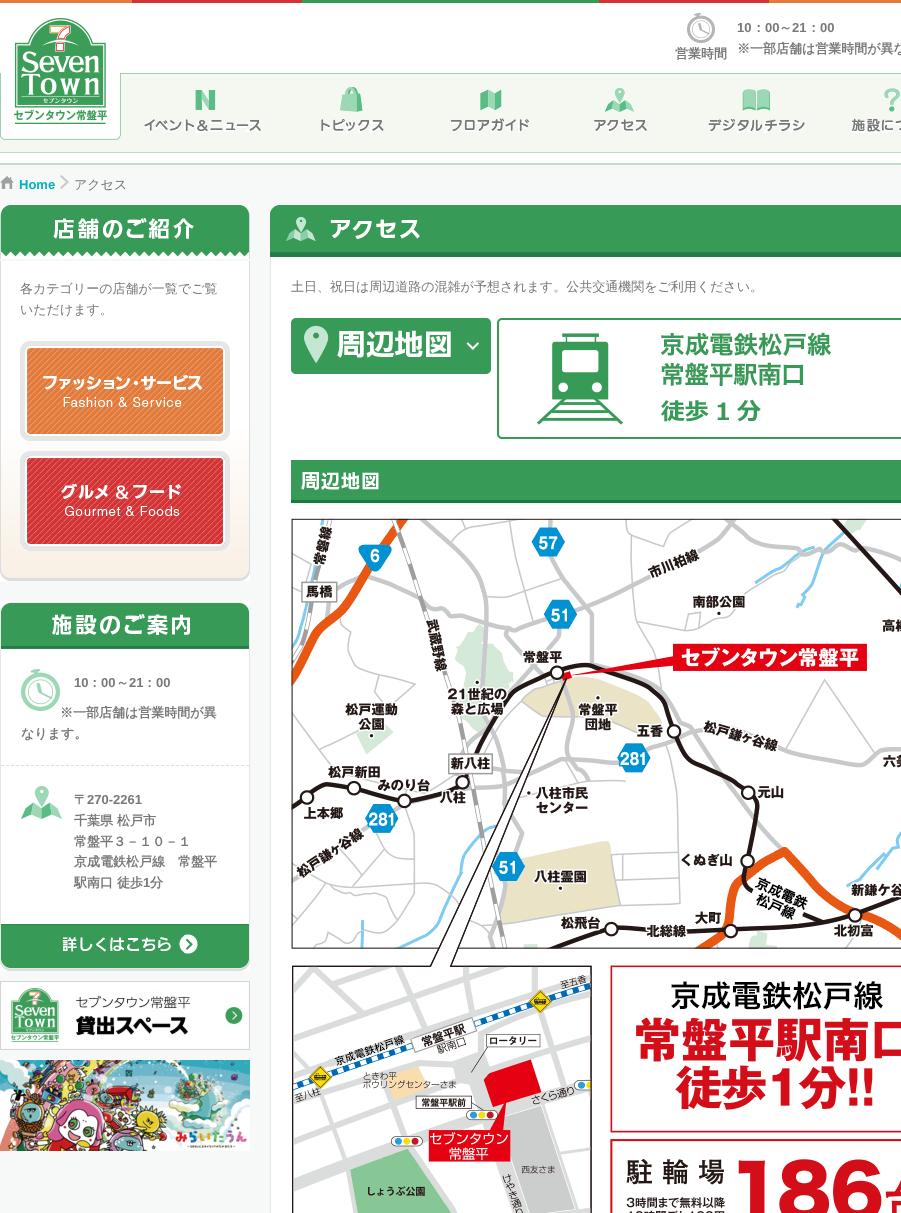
<!DOCTYPE html>
<meta charset="utf-8">
<style>body { margin: 0 } canvas { display: block }</style>
<canvas id="canvas" width="901" height="1213"></canvas>
<script type="module">
  const canvas = document.getElementById("canvas");
  const g = canvas.getContext("2d");
  g.miterLimit = 4;
  g.fontKerning = "normal";
  function drawText(s, x, y, [font, color]) {
    g.font = font;
    g.fillStyle = color;
    g.fillText(s, x, y);
  }
  function fillBox(x, y, w, h, color) {
    g.fillStyle = color;
    g.fillRect(x, y, w, h);
  }
  async function drawPicture(src, x, y, w, h) {
    const img = new Image();
    img.src = src;
    await img.decode();
    g.drawImage(img, x, y, w, h);
  }

  const s1 = ["bold 13px WenQuanYi Zen Hei", "#787878"];
  const s2 = ["bold 13px Liberation Sans", "#787878"];
  const s3 = ["bold 13px Liberation Sans", "#00B3C0"];
  const s4 = ["500 13px WenQuanYi Zen Hei", "#787878"];

  fillBox(0, 0, 901, 1213, "#F7F8F8");
  await drawPicture("pic1.png", 0, 3, 901, 162);
  await drawPicture("pic2.png", 0, 0, 901, 3);
  await drawPicture("pic3.png", 0, 18, 121, 122);
  drawText("営業時間", 675, 58, s1);
  await drawPicture("pic4.png", 687, 13, 28, 30);
  drawText("10", 737, 32, s2);
  drawText("：", 752, 32, s1);
  drawText("00", 765, 32, s2);
  drawText("～", 779, 32, s1);
  drawText("21", 792, 32, s2);
  drawText("：", 807, 32, s1);
  drawText("00", 820, 32, s2);
  drawText("※一部店舗は営業時間が異な", 737, 53, s1);
  await drawPicture("pic5.png", 144, 89, 117, 44);
  await drawPicture("pic6.png", 321, 87, 63, 46);
  await drawPicture("pic7.png", 450, 89, 79, 44);
  await drawPicture("pic8.png", 594, 87, 53, 46);
  await drawPicture("pic9.png", 708, 89, 97, 44);
  await drawPicture("pic10.png", 851, 88, 50, 45);
  await drawPicture("pic11.png", 0, 176, 14, 13);
  drawText("Home", 19, 189, s3);
  await drawPicture("pic12.png", 60, 175, 9, 14);
  drawText("アクセス", 74, 189, s4);
  await drawPicture("pic13.png", 0, 261, 250, 320);
  await drawPicture("pic14.png", 0, 205, 250, 54);
  drawText("各カテゴリーの店舗が一覧でご覧", 20, 293, s4);
  drawText("いただけます。", 20, 314, s4);
  await drawPicture("pic15.png", 20, 341, 210, 100);
  await drawPicture("pic16.png", 20, 451, 210, 100);
  await drawPicture("pic17.png", 0, 601, 250, 48);
  fillBox(1, 649, 248, 275, "#FFFFFF");
  fillBox(249, 649, 1, 275, "#E7E7E7");
  fillBox(0, 649, 1, 275, "#E7E7E7");
  g.beginPath();
  g.moveTo(1, 765.5);
  g.lineTo(249, 765.5);
  g.strokeStyle = "#DCDCDC";
  g.setLineDash([3, 2]);
  g.stroke();
  await drawPicture("pic18.png", 21, 669, 39, 42);
  drawText("10", 74, 687, s2);
  drawText("：", 88, 687, s1);
  drawText("00", 101, 687, s2);
  drawText("～", 116, 687, s1);
  drawText("21", 129, 687, s2);
  drawText("：", 143, 687, s1);
  drawText("00", 156, 687, s2);
  drawText("※一部店舗は営業時間が異", 60, 717, s1);
  drawText("なります。", 21, 738, s1);
  await drawPicture("pic19.png", 21, 786, 41, 33);
  drawText("〒", 74, 804, s1);
  drawText("270-2261", 87, 804, s2);
  drawText("千葉県 松戸市", 74, 825, s1);
  drawText("常盤平３－１０－１", 74, 846, s1);
  drawText("京成電鉄松戸線　常盤平", 74, 866, s1);
  drawText("駅南口 徒歩", 74, 887, s1);
  drawText("1", 143, 887, s2);
  drawText("分", 150, 887, s1);
  await drawPicture("pic20.png", 0, 924, 250, 47);
  await drawPicture("pic21.png", 0, 981, 250, 69);
  await drawPicture("pic22.png", 0, 1060, 250, 91);
  await drawPicture("pic23.png", 270, 205, 631, 52);
  fillBox(271, 257, 630, 956, "#FFFFFF");
  fillBox(270, 257, 1, 956, "#E7E7E7");
  drawText("土日、祝日は周辺道路の混雑が予想されます。公共交通機関をご利用ください。", 291, 291, s4);
  await drawPicture("pic24.png", 291, 318, 200, 56);
  await drawPicture("pic25.png", 497, 318, 404, 121);
  await drawPicture("pic26.png", 291, 460, 610, 43);
  await drawPicture("pic27.png", 291, 518, 610, 695);
</script>
